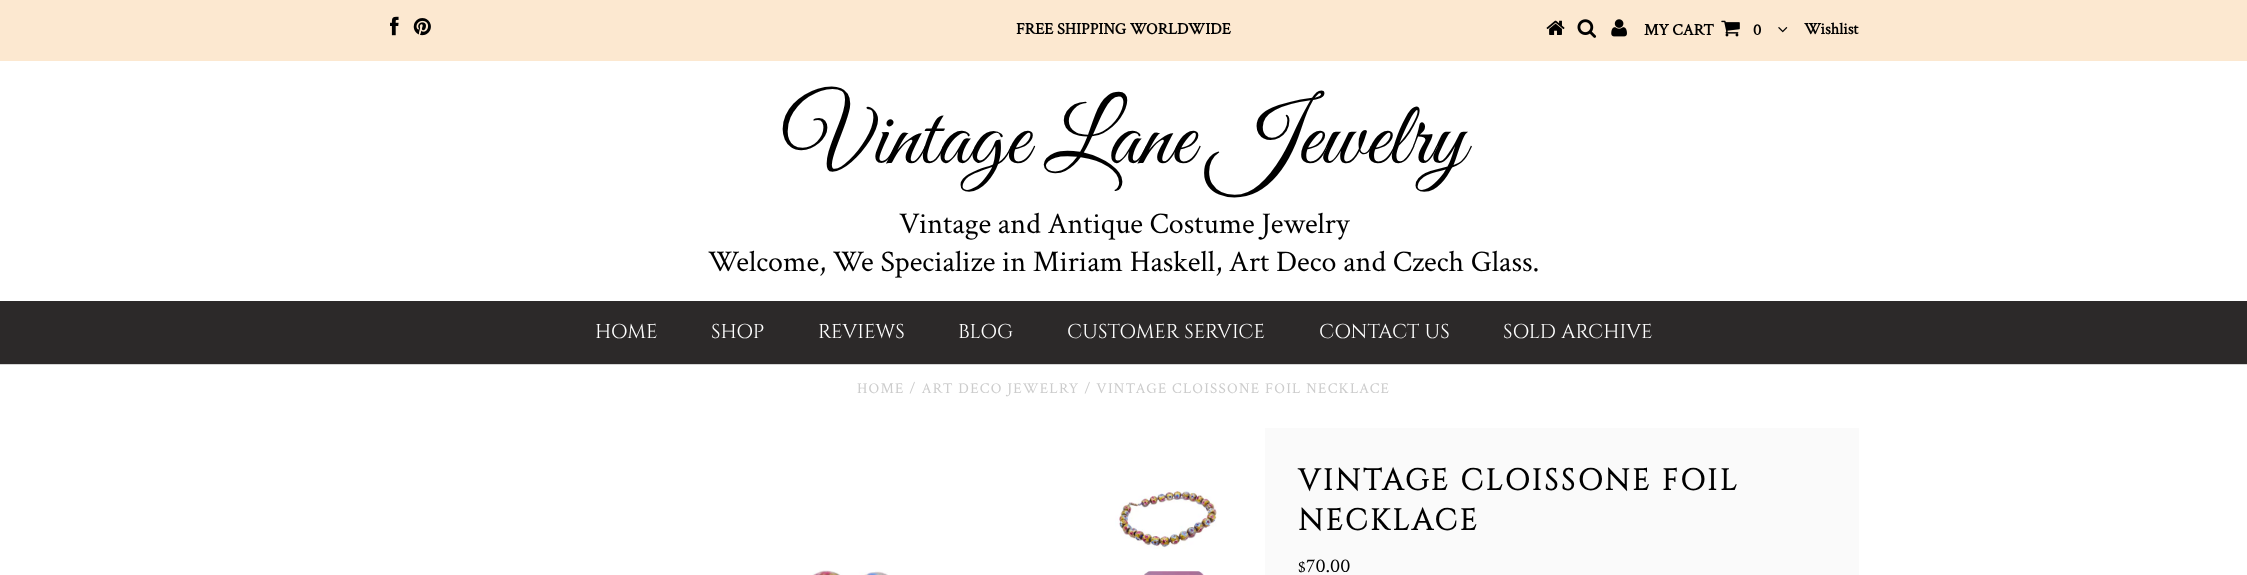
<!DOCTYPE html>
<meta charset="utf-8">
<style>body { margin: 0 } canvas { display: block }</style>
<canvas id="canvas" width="2247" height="575"></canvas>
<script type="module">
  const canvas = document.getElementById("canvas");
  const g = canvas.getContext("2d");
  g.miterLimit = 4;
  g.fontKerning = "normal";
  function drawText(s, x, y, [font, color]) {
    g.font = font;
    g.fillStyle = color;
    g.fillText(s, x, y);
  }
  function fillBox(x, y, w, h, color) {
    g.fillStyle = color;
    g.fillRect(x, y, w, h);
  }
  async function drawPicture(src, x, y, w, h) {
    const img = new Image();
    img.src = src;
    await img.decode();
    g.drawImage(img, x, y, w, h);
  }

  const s1 = ["bold 16.25px Crimson Text", "#000000"];
  const s2 = ["90px Great Vibes", "#000000"];
  const s3 = ["30px Crimson Text", "#000000"];
  const s4 = ["20px Cinzel", "#FFFFFF"];
  const s5 = ["15px Crimson Text", "#CCCCCC"];
  const s6 = ["bold 30px Cinzel", "#000000"];
  const s7 = ["16.25px Crimson Text", "#000000"];
  const s8 = ["20px Crimson Text", "#000000"];

  fillBox(0, 0, 2247, 575, "#FFFFFF");
  fillBox(0, 0, 2247, 61, "#FCE8D0");
  await drawPicture("pic1.png", 390, 16, 9, 20);
  await drawPicture("pic2.png", 413, 18, 18, 18);
  drawText("FREE SHIPPING WORLDWIDE", 1016, 34, s1);
  await drawPicture("pic3.png", 1546, 20, 19, 15);
  await drawPicture("pic4.png", 1577, 19, 20, 19);
  await drawPicture("pic5.png", 1611, 19, 16, 18);
  drawText("MY CART", 1644, 35, s1);
  await drawPicture("pic6.png", 1721, 20, 19, 17);
  drawText("0", 1753, 35, s1);
  await drawPicture("pic7.png", 1778, 27, 10, 6);
  drawText("Wishlist", 1804, 34, s1);
  drawText("Vintage Lane Jewelry", 783, 163, s2);
  drawText("Vintage and Antique Costume Jewelry", 899, 233, s3);
  drawText("Welcome, We Specialize in Miriam Haskell, Art Deco and Czech Glass.", 708, 271, s3);
  fillBox(0, 301, 2247, 63, "#2C2929");
  fillBox(0, 364, 2247, 1, "#D5D5D5");
  drawText("HOME", 595, 338, s4);
  drawText("SHOP", 711, 338, s4);
  drawText("REVIEWS", 818, 338, s4);
  drawText("BLOG", 958, 338, s4);
  drawText("CUSTOMER SERVICE", 1067, 338, s4);
  drawText("CONTACT US", 1319, 338, s4);
  drawText("SOLD ARCHIVE", 1503, 338, s4);
  g.letterSpacing = "1.25px";
  drawText("HOME / ART DECO JEWELRY / VINTAGE CLOISSONE FOIL NECKLACE", 857, 393, s5);
  await drawPicture("pic8.png", 812, 570, 76, 5);
  await drawPicture("pic9.png", 1115, 490, 102, 59);
  await drawPicture("pic10.png", 1142, 571, 62, 4);
  fillBox(1265, 428, 594, 147, "#FAFAFA");
  g.letterSpacing = "2.5px";
  drawText("VINTAGE CLOISSONE FOIL", 1298, 490, s6);
  drawText("NECKLACE", 1298, 530, s6);
  g.letterSpacing = "0px";
  drawText("$", 1298, 572, s7);
  drawText("70.00", 1306, 572, s8);
</script>
